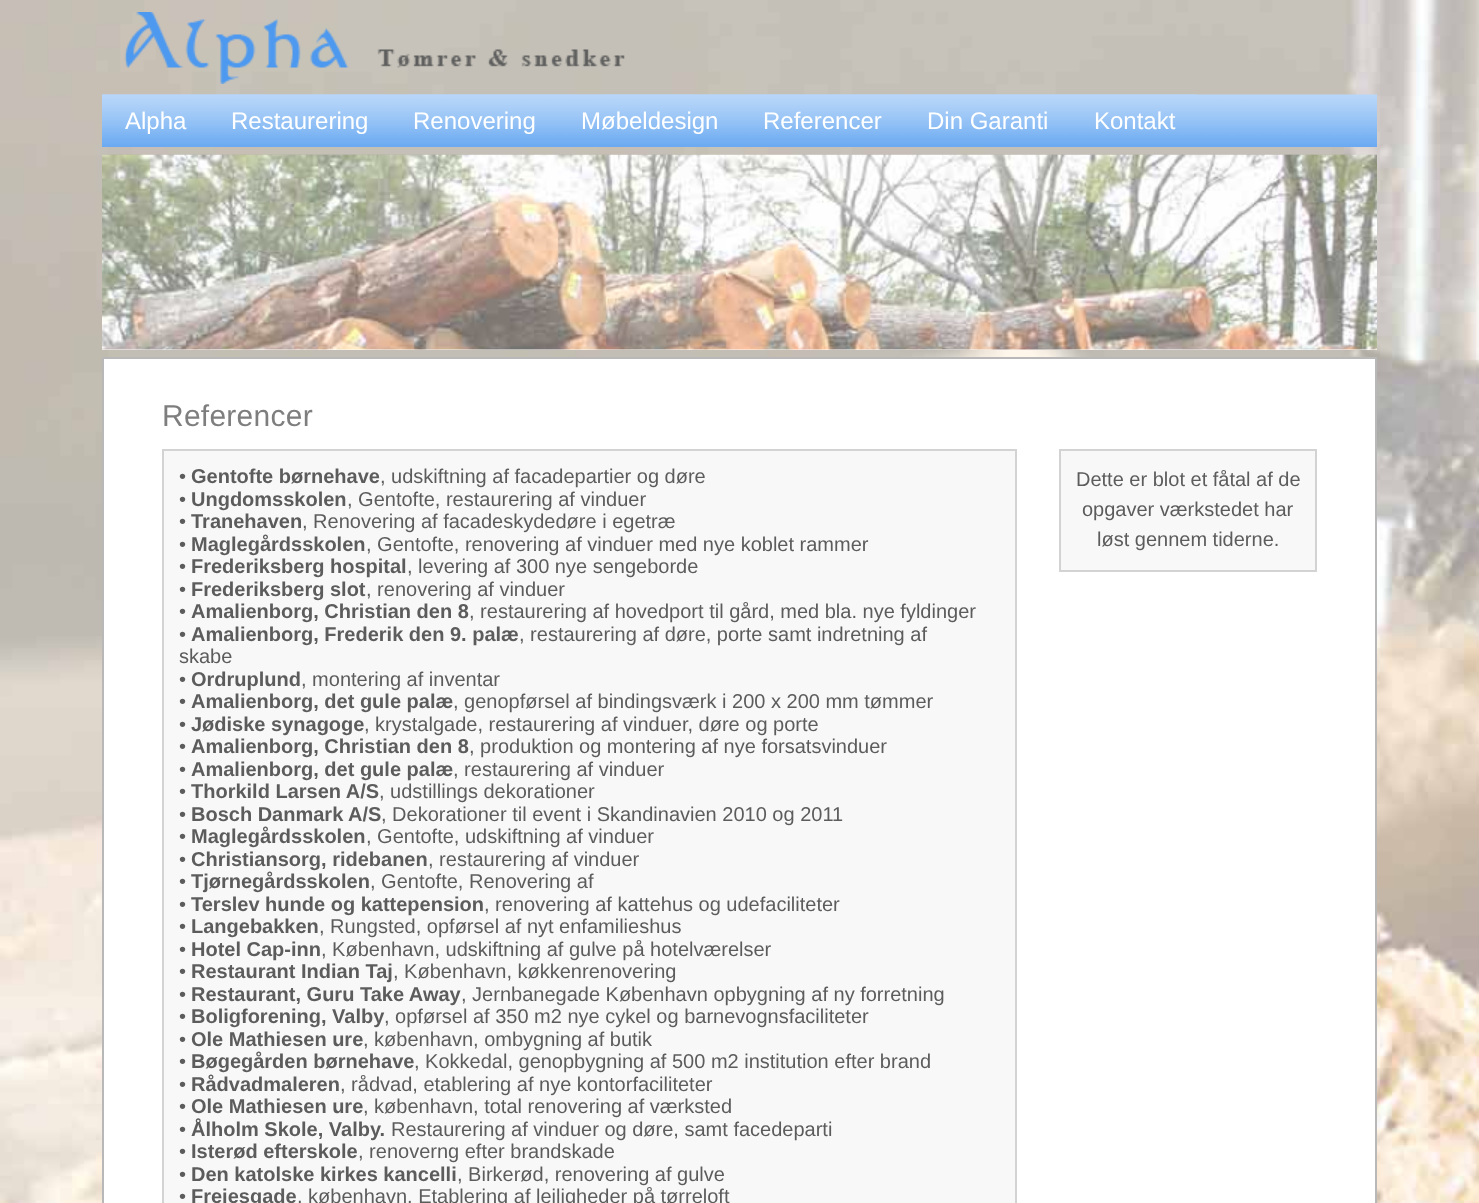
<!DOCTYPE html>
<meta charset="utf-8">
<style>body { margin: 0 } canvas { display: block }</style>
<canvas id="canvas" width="1479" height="1203"></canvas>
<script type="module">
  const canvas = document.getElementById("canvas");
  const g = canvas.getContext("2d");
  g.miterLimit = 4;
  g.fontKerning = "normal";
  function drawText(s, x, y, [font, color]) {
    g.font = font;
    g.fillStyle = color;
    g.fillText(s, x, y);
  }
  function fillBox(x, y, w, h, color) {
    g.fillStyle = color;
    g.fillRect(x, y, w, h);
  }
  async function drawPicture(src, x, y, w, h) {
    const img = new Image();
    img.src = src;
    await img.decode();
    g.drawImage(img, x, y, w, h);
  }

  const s1 = ["24px Liberation Sans", "#FFFFFF"];
  const s2 = ["30px Liberation Sans", "#7E7E7E"];
  const s3 = ["20px Liberation Sans", "#5C5C5C"];
  const s4 = ["bold 20px Liberation Sans", "#5C5C5C"];

  fillBox(0, 0, 1479, 1203, "#FFFFFF");
  await drawPicture("pic1.png", 0, 0, 1479, 1203);
  await drawPicture("pic2.png", 124, 12, 501, 72);
  await drawPicture("pic3.png", 102, 94, 1275, 53);
  await drawPicture("pic4.png", 102, 94, 107, 53);
  drawText("Alpha", 125, 129, s1);
  await drawPicture("pic5.png", 208, 94, 184, 53);
  drawText("Restaurering", 231, 129, s1);
  await drawPicture("pic6.png", 391, 94, 167, 53);
  drawText("Renovering", 413, 129, s1);
  await drawPicture("pic7.png", 558, 94, 183, 53);
  drawText("Møbeldesign", 581, 129, s1);
  await drawPicture("pic8.png", 741, 94, 164, 53);
  drawText("Referencer", 763, 129, s1);
  await drawPicture("pic9.png", 904, 94, 167, 53);
  drawText("Din Garanti", 927, 129, s1);
  await drawPicture("pic10.png", 1071, 94, 126, 53);
  drawText("Kontakt", 1094, 129, s1);
  fillBox(102, 155, 1275, 195, "#FFFFFF");
  await drawPicture("pic11.png", 102, 154, 1275, 196);
  g.beginPath();
  g.rect(103, 358, 1273, 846);
  g.fill();
  g.strokeStyle = "#B8B8B8";
  g.lineWidth = 2;
  g.stroke();
  g.letterSpacing = "0.25px";
  drawText("Referencer", 162, 426, s2);
  g.fillStyle = "#F8F8F8";
  g.beginPath();
  g.rect(163, 450, 853, 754);
  g.fill();
  g.strokeStyle = "#D3D3D3";
  g.stroke();
  g.letterSpacing = "0px";
  drawText("•", 179, 483, s3);
  drawText("Gentofte børnehave", 191, 483, s4);
  drawText(", udskiftning af facadepartier og døre", 380, 483, s3);
  drawText("•", 179, 506, s3);
  drawText("Ungdomsskolen", 191, 506, s4);
  drawText(", Gentofte, restaurering af vinduer", 347, 506, s3);
  drawText("•", 179, 528, s3);
  drawText("Tranehaven", 191, 528, s4);
  drawText(", Renovering af facadeskydedøre i egetræ", 302, 528, s3);
  drawText("•", 179, 551, s3);
  drawText("Maglegårdsskolen", 191, 551, s4);
  drawText(", Gentofte, renovering af vinduer med nye koblet rammer", 366, 551, s3);
  drawText("•", 179, 573, s3);
  drawText("Frederiksberg hospital", 191, 573, s4);
  drawText(", levering af 300 nye sengeborde", 407, 573, s3);
  drawText("•", 179, 596, s3);
  drawText("Frederiksberg slot", 191, 596, s4);
  drawText(", renovering af vinduer", 366, 596, s3);
  drawText("•", 179, 618, s3);
  drawText("Amalienborg, Christian den 8", 191, 618, s4);
  drawText(", restaurering af hovedport til gård, med bla. nye fyldinger", 469, 618, s3);
  drawText("•", 179, 641, s3);
  drawText("Amalienborg, Frederik den 9. palæ", 191, 641, s4);
  drawText(", restaurering af døre, porte samt indretning af", 519, 641, s3);
  drawText("skabe", 179, 663, s3);
  drawText("•", 179, 686, s3);
  drawText("Ordruplund", 191, 686, s4);
  drawText(", montering af inventar", 301, 686, s3);
  drawText("•", 179, 708, s3);
  drawText("Amalienborg, det gule palæ", 191, 708, s4);
  drawText(", genopførsel af bindingsværk i 200 x 200 mm tømmer", 453, 708, s3);
  drawText("•", 179, 731, s3);
  drawText("Jødiske synagoge", 191, 731, s4);
  drawText(", krystalgade, restaurering af vinduer, døre og porte", 364, 731, s3);
  drawText("•", 179, 753, s3);
  drawText("Amalienborg, Christian den 8", 191, 753, s4);
  drawText(", produktion og montering af nye forsatsvinduer", 469, 753, s3);
  drawText("•", 179, 776, s3);
  drawText("Amalienborg, det gule palæ", 191, 776, s4);
  drawText(", restaurering af vinduer", 453, 776, s3);
  drawText("•", 179, 798, s3);
  drawText("Thorkild Larsen A/S", 191, 798, s4);
  drawText(", udstillings dekorationer", 379, 798, s3);
  drawText("•", 179, 821, s3);
  drawText("Bosch Danmark A/S", 191, 821, s4);
  drawText(", Dekorationer til event i Skandinavien 2010 og 2011", 381, 821, s3);
  drawText("•", 179, 843, s3);
  drawText("Maglegårdsskolen", 191, 843, s4);
  drawText(", Gentofte, udskiftning af vinduer", 366, 843, s3);
  drawText("•", 179, 866, s3);
  drawText("Christiansorg, ridebanen", 191, 866, s4);
  drawText(", restaurering af vinduer", 428, 866, s3);
  drawText("•", 179, 888, s3);
  drawText("Tjørnegårdsskolen", 191, 888, s4);
  drawText(", Gentofte, Renovering af", 370, 888, s3);
  drawText("•", 179, 911, s3);
  drawText("Terslev hunde og kattepension", 191, 911, s4);
  drawText(", renovering af kattehus og udefaciliteter", 484, 911, s3);
  drawText("•", 179, 933, s3);
  drawText("Langebakken", 191, 933, s4);
  drawText(", Rungsted, opførsel af nyt enfamilieshus", 319, 933, s3);
  drawText("•", 179, 956, s3);
  drawText("Hotel Cap-inn", 191, 956, s4);
  drawText(", København, udskiftning af gulve på hotelværelser", 321, 956, s3);
  drawText("•", 179, 978, s3);
  drawText("Restaurant Indian Taj", 191, 978, s4);
  drawText(", København, køkkenrenovering", 393, 978, s3);
  drawText("•", 179, 1001, s3);
  drawText("Restaurant, Guru Take Away", 191, 1001, s4);
  drawText(", Jernbanegade København opbygning af ny forretning", 461, 1001, s3);
  drawText("•", 179, 1023, s3);
  drawText("Boligforening, Valby", 191, 1023, s4);
  drawText(", opførsel af 350 m2 nye cykel og barnevognsfaciliteter", 384, 1023, s3);
  drawText("•", 179, 1046, s3);
  drawText("Ole Mathiesen ure", 191, 1046, s4);
  drawText(", københavn, ombygning af butik", 363, 1046, s3);
  drawText("•", 179, 1068, s3);
  drawText("Bøgegården børnehave", 191, 1068, s4);
  drawText(", Kokkedal, genopbygning af 500 m2 institution efter brand", 414, 1068, s3);
  drawText("•", 179, 1091, s3);
  drawText("Rådvadmaleren", 191, 1091, s4);
  drawText(", rådvad, etablering af nye kontorfaciliteter", 340, 1091, s3);
  drawText("•", 179, 1113, s3);
  drawText("Ole Mathiesen ure", 191, 1113, s4);
  drawText(", københavn, total renovering af værksted", 363, 1113, s3);
  drawText("•", 179, 1136, s3);
  drawText("Ålholm Skole, Valby.", 191, 1136, s4);
  drawText("Restaurering af vinduer og døre, samt facedeparti", 391, 1136, s3);
  drawText("•", 179, 1158, s3);
  drawText("Isterød efterskole", 191, 1158, s4);
  drawText(", renoverng efter brandskade", 358, 1158, s3);
  drawText("•", 179, 1181, s3);
  drawText("Den katolske kirkes kancelli", 191, 1181, s4);
  drawText(", Birkerød, renovering af gulve", 457, 1181, s3);
  drawText("•", 179, 1203, s3);
  drawText("Frejesgade", 191, 1203, s4);
  drawText(", københavn. Etablering af lejligheder på tørreloft", 297, 1203, s3);
  g.fillStyle = "#F8F8F8";
  g.beginPath();
  g.rect(1060, 450, 256, 121);
  g.fill();
  g.stroke();
  drawText("Dette er blot et fåtal af de", 1076, 486, s3);
  drawText("opgaver værkstedet har", 1082, 516, s3);
  drawText("løst gennem tiderne.", 1097, 546, s3);
</script>
